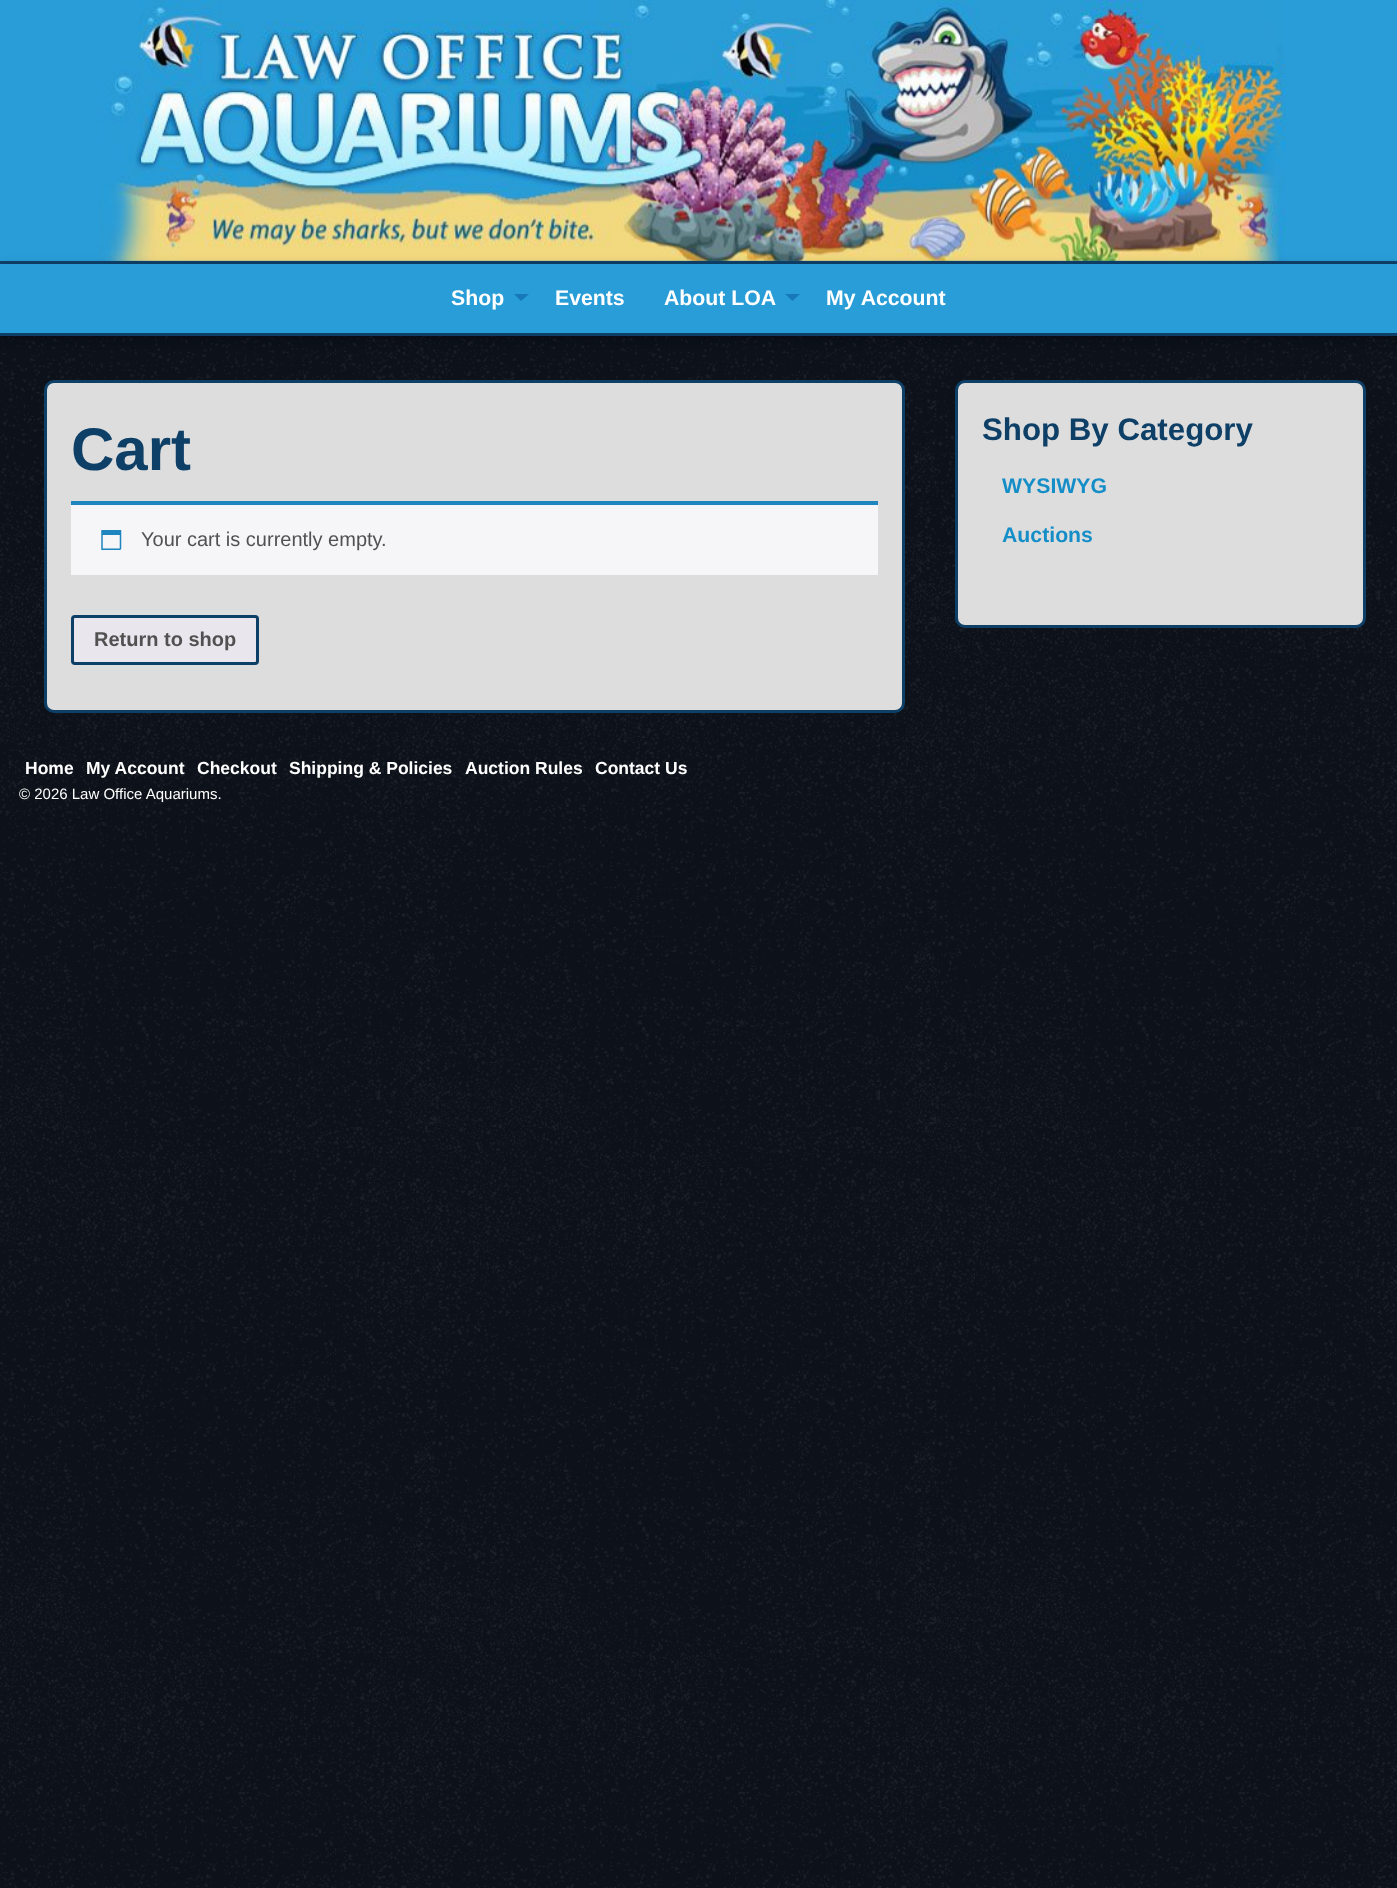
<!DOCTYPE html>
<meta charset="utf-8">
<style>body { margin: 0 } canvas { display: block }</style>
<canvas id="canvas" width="1397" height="1888"></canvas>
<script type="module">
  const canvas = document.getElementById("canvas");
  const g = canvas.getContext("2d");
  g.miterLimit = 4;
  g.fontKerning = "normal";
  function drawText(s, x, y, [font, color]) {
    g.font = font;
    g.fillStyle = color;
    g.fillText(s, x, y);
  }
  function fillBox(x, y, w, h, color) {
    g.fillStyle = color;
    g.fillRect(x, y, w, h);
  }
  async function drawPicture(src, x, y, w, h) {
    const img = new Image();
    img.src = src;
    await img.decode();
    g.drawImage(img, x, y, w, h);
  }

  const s1 = ["bold 21.25px Liberation Sans", "#FFFFFF"];
  const s2 = ["bold 60px Liberation Sans", "#0D3F67"];
  const s3 = ["20px Liberation Sans", "#515151"];
  const s4 = ["bold 20px Liberation Sans", "#515151"];
  const s5 = ["bold 31.25px Liberation Sans", "#0D3F67"];
  const s6 = ["bold 21.25px Liberation Sans", "#158EC8"];
  const s7 = ["bold 17.5px Liberation Sans", "#FFFFFF"];
  const s8 = ["15px Liberation Sans", "#FFFFFF"];

  fillBox(0, 0, 1397, 1888, "#FFFFFF");
  await drawPicture("pic1.png", 0, 336, 1397, 1552);
  fillBox(0, 0, 1397, 261, "#299DD8");
  fillBox(0, 261, 1397, 3, "#10436D");
  await drawPicture("pic2.png", 99, 0, 1187, 261);
  g.fillStyle = "rgba(0, 0, 0, 0.26)";
  g.filter = "blur(3px)";
  g.beginPath();
  g.rect(0, 266, 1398, 72);
  g.fill();
  g.filter = "none";
  g.fillStyle = "rgba(0, 0, 0, 0.16)";
  g.filter = "blur(6px)";
  g.beginPath();
  g.rect(0, 266, 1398, 72);
  g.fill();
  g.filter = "none";
  fillBox(0, 264, 1397, 69, "#299DD8");
  fillBox(0, 333, 1397, 3, "#0D3F67");
  drawText("Shop", 451, 305, s1);
  g.fillStyle = "#1779BA";
  g.beginPath();
  g.moveTo(514, 294);
  g.lineTo(529, 294);
  g.lineTo(521, 301);
  g.closePath();
  g.fill();
  drawText("Events", 555, 305, s1);
  drawText("About LOA", 664, 305, s1);
  g.fillStyle = "#1779BA";
  g.beginPath();
  g.moveTo(785, 294);
  g.lineTo(800, 294);
  g.lineTo(792.5, 301);
  g.closePath();
  g.fill();
  drawText("My Account", 826, 305, s1);
  g.fillStyle = "#DDDDDD";
  g.beginPath();
  g.roundRect(45.5, 381.5, 858, 330, 8.5);
  g.fill();
  g.strokeStyle = "#0D3F67";
  g.lineWidth = 3;
  g.stroke();
  drawText("Cart", 71, 470, s2);
  fillBox(71, 505, 807, 70, "#F6F5F8");
  fillBox(71, 501, 807, 4, "#1E85BE");
  await drawPicture("pic3.png", 101, 530, 21, 20);
  drawText("Your cart is currently empty.", 141, 546, s3);
  g.fillStyle = "#E9E6ED";
  g.beginPath();
  g.roundRect(72.5, 616.5, 185, 47, 2.5);
  g.fill();
  g.stroke();
  drawText("Return to shop", 94, 646, s4);
  g.fillStyle = "#DDDDDD";
  g.beginPath();
  g.roundRect(956.5, 381.5, 408, 245, 8.5);
  g.fill();
  g.stroke();
  drawText("Shop By Category", 982, 440, s5);
  drawText("WYSIWYG", 1002, 493, s6);
  drawText("Auctions", 1002, 542, s6);
  drawText("Home", 25, 774, s7);
  drawText("My Account", 86, 774, s7);
  drawText("Checkout", 197, 774, s7);
  drawText("Shipping & Policies", 289, 774, s7);
  drawText("Auction Rules", 465, 774, s7);
  drawText("Contact Us", 595, 774, s7);
  drawText("© 2026 Law Office Aquariums.", 19, 799, s8);
</script>
